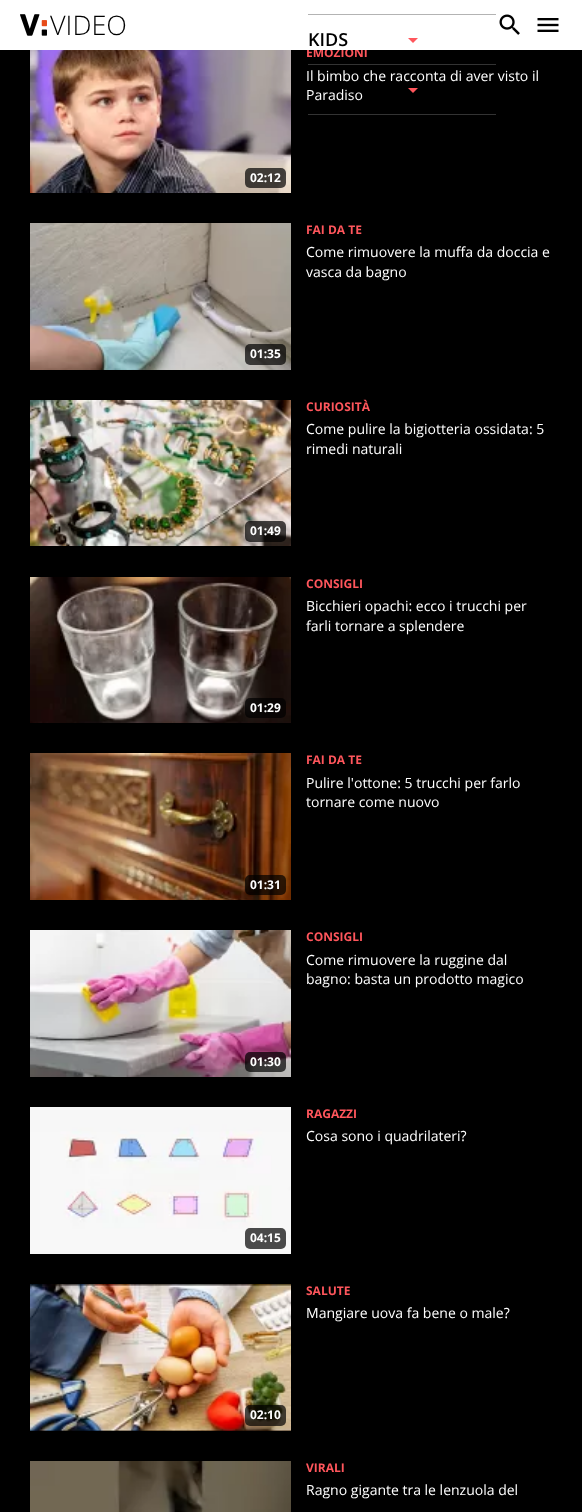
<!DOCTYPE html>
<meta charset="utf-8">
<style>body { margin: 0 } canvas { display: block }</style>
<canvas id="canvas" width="582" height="1512"></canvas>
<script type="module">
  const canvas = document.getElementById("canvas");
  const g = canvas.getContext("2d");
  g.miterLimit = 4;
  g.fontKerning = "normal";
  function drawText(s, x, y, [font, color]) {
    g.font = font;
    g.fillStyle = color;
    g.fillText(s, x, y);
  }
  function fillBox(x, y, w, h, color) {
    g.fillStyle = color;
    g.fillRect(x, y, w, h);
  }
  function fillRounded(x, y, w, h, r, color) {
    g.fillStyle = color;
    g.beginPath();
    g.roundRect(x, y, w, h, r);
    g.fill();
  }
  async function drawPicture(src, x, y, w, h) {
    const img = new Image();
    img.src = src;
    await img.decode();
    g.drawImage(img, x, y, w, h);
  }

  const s1 = ["bold 12px Open Sans", "#FF565C"];
  const s2 = ["300 27px Open Sans", "#000000"];
  const s3 = ["600 18px Open Sans", "#000000"];
  const s4 = ["14px Open Sans", "#FFFFFF"];
  const s5 = ["bold 12px Open Sans", "#FFFFFF"];

  fillBox(0, 0, 582, 1512, "#000000");
  drawText("EMOZIONI", 306, 57, s1);
  fillBox(0, 0, 582, 50, "#FFFFFF");
  await drawPicture("pic1.png", 20, 14, 27, 22);
  drawText("VIDEO", 50, 35, s2);
  await drawPicture("pic2.png", 499, 14, 21, 21);
  await drawPicture("pic3.png", 537, 18, 22, 14);
  fillBox(308, 14, 188, 1, "#B3B3B3");
  fillBox(308, 64, 188, 1, "#333333");
  drawText("KIDS", 308, 46, s3);
  g.fillStyle = "#FF565C";
  g.beginPath();
  g.moveTo(408, 38);
  g.lineTo(418, 38);
  g.lineTo(413, 43);
  g.closePath();
  g.fill();
  fillBox(308, 114, 188, 1, "#333333");
  g.fillStyle = "#FF565C";
  g.beginPath();
  g.moveTo(408, 88);
  g.lineTo(418, 88);
  g.lineTo(413, 93);
  g.closePath();
  g.fill();
  drawText("Il bimbo che racconta di aver visto il", 306, 81, s4);
  drawText("Paradiso", 306, 100, s4);
  await drawPicture("pic4.png", 30, 50, 261, 143);
  fillRounded(245, 168, 41, 20, 5, "rgba(0, 0, 0, 0.7)");
  drawText("02:12", 250, 182, s5);
  drawText("FAI DA TE", 306, 234, s1);
  drawText("Come rimuovere la muffa da doccia e", 306, 257, s4);
  drawText("vasca da bagno", 306, 277, s4);
  await drawPicture("pic5.png", 30, 223, 261, 147);
  fillRounded(245, 344, 41, 21, 5, "rgba(0, 0, 0, 0.7)");
  drawText("01:35", 250, 358, s5);
  drawText("CURIOSITÀ", 306, 411, s1);
  drawText("Come pulire la bigiotteria ossidata: 5", 306, 434, s4);
  drawText("rimedi naturali", 306, 454, s4);
  await drawPicture("pic6.png", 30, 400, 261, 146);
  fillRounded(245, 521, 41, 21, 5, "rgba(0, 0, 0, 0.7)");
  drawText("01:49", 250, 535, s5);
  drawText("CONSIGLI", 306, 588, s1);
  drawText("Bicchieri opachi: ecco i trucchi per", 306, 611, s4);
  drawText("farli tornare a splendere", 306, 631, s4);
  await drawPicture("pic7.png", 30, 577, 261, 146);
  fillRounded(245, 698, 41, 20, 5, "rgba(0, 0, 0, 0.7)");
  drawText("01:29", 250, 712, s5);
  drawText("FAI DA TE", 306, 764, s1);
  drawText("Pulire l'ottone: 5 trucchi per farlo", 306, 788, s4);
  drawText("tornare come nuovo", 306, 807, s4);
  await drawPicture("pic8.png", 30, 753, 261, 147);
  fillRounded(245, 875, 41, 20, 5, "rgba(0, 0, 0, 0.7)");
  drawText("01:31", 250, 889, s5);
  drawText("CONSIGLI", 306, 941, s1);
  drawText("Come rimuovere la ruggine dal", 306, 965, s4);
  drawText("bagno: basta un prodotto magico", 306, 984, s4);
  await drawPicture("pic9.png", 30, 930, 261, 147);
  fillRounded(245, 1052, 41, 20, 5, "rgba(0, 0, 0, 0.7)");
  drawText("01:30", 250, 1066, s5);
  drawText("RAGAZZI", 306, 1118, s1);
  drawText("Cosa sono i quadrilateri?", 306, 1141, s4);
  await drawPicture("pic10.png", 30, 1107, 261, 147);
  fillRounded(245, 1228, 41, 21, 5, "rgba(0, 0, 0, 0.7)");
  drawText("04:15", 250, 1242, s5);
  drawText("SALUTE", 306, 1295, s1);
  drawText("Mangiare uova fa bene o male?", 306, 1318, s4);
  await drawPicture("pic11.png", 30, 1284, 261, 147);
  fillRounded(245, 1405, 41, 21, 5, "rgba(0, 0, 0, 0.7)");
  drawText("02:10", 250, 1419, s5);
  await drawPicture("pic12.png", 30, 1461, 261, 51);
  drawText("VIRALI", 306, 1472, s1);
  drawText("Ragno gigante tra le lenzuola del", 306, 1495, s4);
</script>
